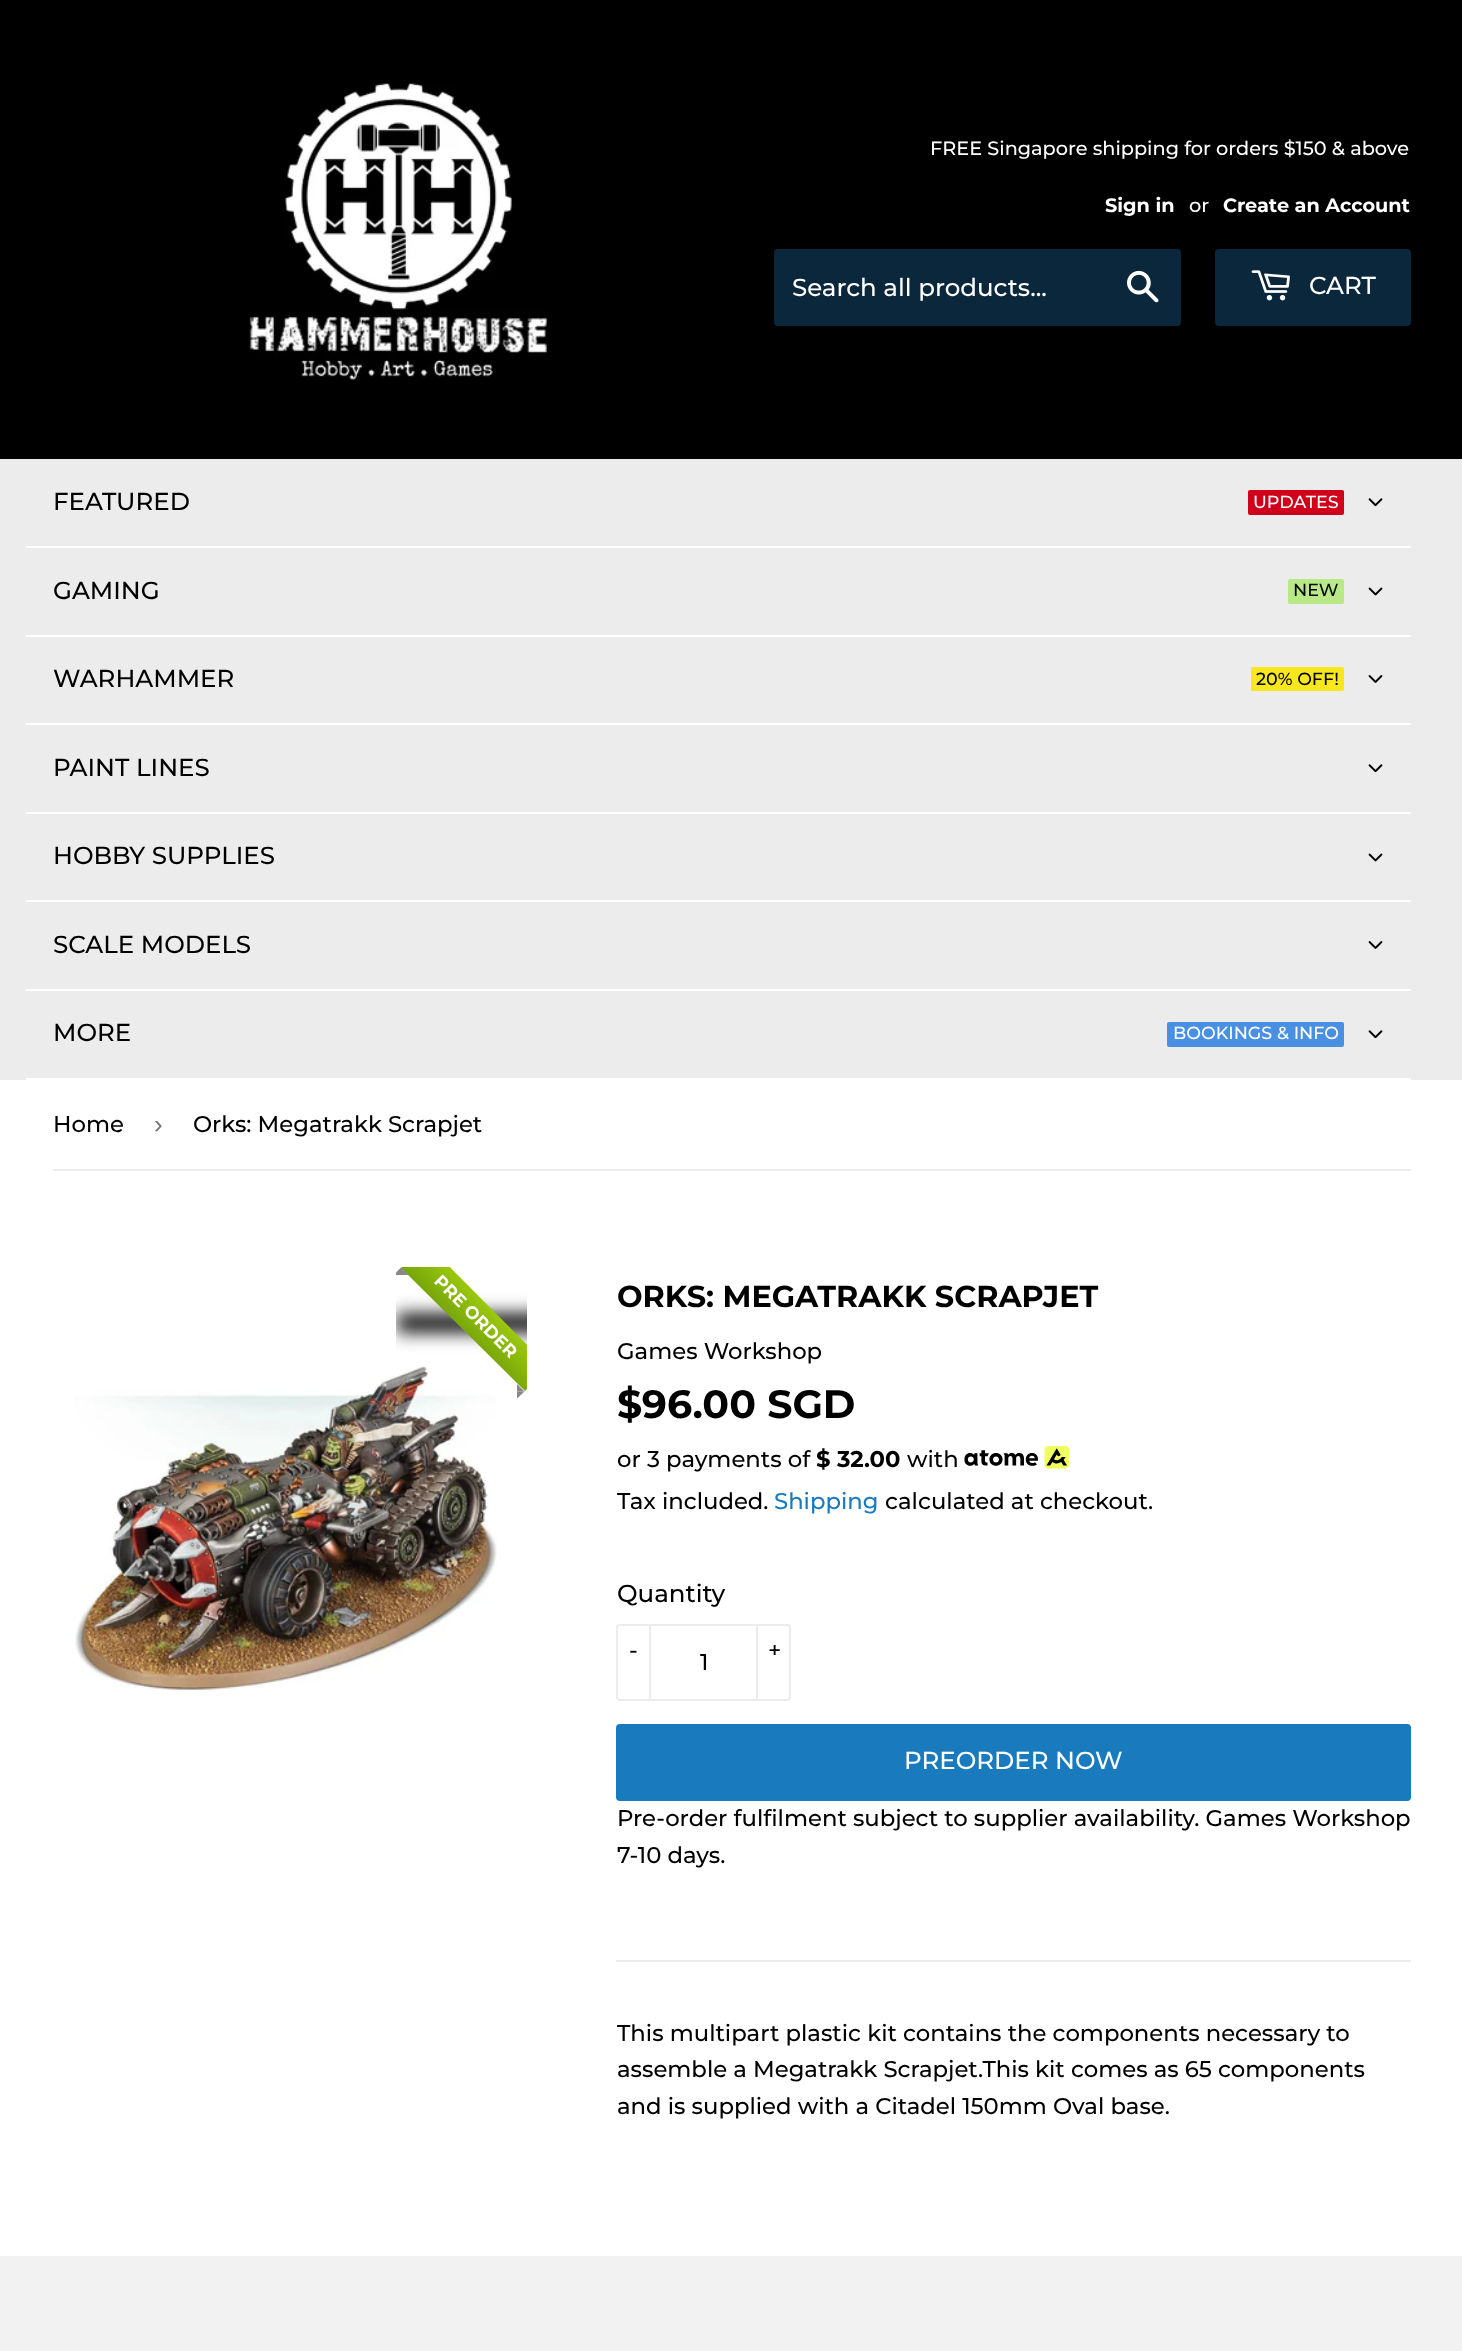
<!DOCTYPE html>
<meta charset="utf-8">
<style>body { margin: 0 } canvas { display: block }</style>
<canvas id="canvas" width="1462" height="2351"></canvas>
<script type="module">
  const canvas = document.getElementById("canvas");
  const g = canvas.getContext("2d");
  g.miterLimit = 4;
  g.fontKerning = "normal";
  function drawText(s, x, y, [font, color]) {
    g.font = font;
    g.fillStyle = color;
    g.fillText(s, x, y);
  }
  function fillBox(x, y, w, h, color) {
    g.fillStyle = color;
    g.fillRect(x, y, w, h);
  }
  function fillRounded(x, y, w, h, r, color) {
    g.fillStyle = color;
    g.beginPath();
    g.roundRect(x, y, w, h, r);
    g.fill();
  }
  async function drawPicture(src, x, y, w, h) {
    const img = new Image();
    img.src = src;
    await img.decode();
    g.drawImage(img, x, y, w, h);
  }
  let gradient;

  const s1 = ["500 19.3px Montserrat", "#FFFFFF"];
  const s2 = ["bold 19.3px Montserrat", "#FFFFFF"];
  const s3 = ["500 24.5px Montserrat", "#FFFFFF"];
  const s4 = ["500 24.5px Montserrat", "#000000"];
  const s5 = ["500 17.5px Montserrat", "#FFFFFF"];
  const s6 = ["500 17.5px Montserrat", "#000000"];
  const s7 = ["500 22.75px Montserrat", "#000000"];
  const s8 = ["26px Liberation Sans", "#767676"];
  const s9 = ["bold 30.3px Montserrat", "#000000"];
  const s10 = ["bold 39.5px Montserrat", "#000000"];
  const s11 = ["bold 22.75px Montserrat", "#000000"];
  const s12 = ["500 22.75px Montserrat", "#197BBD"];

  fillBox(0, 0, 1462, 2351, "#FFFFFF");
  fillBox(0, 0, 1462, 459, "#000000");
  await drawPicture("pic1.png", 249, 83, 299, 297);
  drawText("FREE Singapore shipping for orders $150 & above", 930, 155, s1);
  drawText("Sign in", 1105, 212, s2);
  drawText("or", 1189, 212, s1);
  drawText("Create an Account", 1223, 212, s2);
  fillRounded(774, 249, 407, 77, 4, "#0B273B");
  drawText("Search all products...", 792, 296, s3);
  await drawPicture("pic2.png", 1127, 270, 32, 33);
  fillRounded(1215, 249, 196, 77, 4, "#0B273B");
  await drawPicture("pic3.png", 1251, 270, 39, 31);
  drawText("CART", 1309, 294, s3);
  fillBox(0, 459, 1462, 621, "#ECECEC");
  fillBox(26, 546, 1385, 2, "#FFFFFF");
  drawText("FEATURED", 53, 510, s4);
  fillRounded(1248, 490, 96, 25, 2, "#D0021B");
  drawText("UPDATES", 1253, 508, s5);
  await drawPicture("pic4.png", 1368, 498, 15, 9);
  fillBox(26, 635, 1385, 2, "#FFFFFF");
  drawText("GAMING", 53, 599, s4);
  fillRounded(1288, 579, 56, 25, 2, "#B8E986");
  drawText("NEW", 1293, 596, s6);
  await drawPicture("pic5.png", 1368, 587, 15, 9);
  fillBox(26, 723, 1385, 2, "#FFFFFF");
  drawText("WARHAMMER", 53, 687, s4);
  fillRounded(1251, 667, 93, 24, 2, "#F8E71C");
  drawText("20% OFF!", 1256, 685, s6);
  await drawPicture("pic6.png", 1368, 675, 15, 8);
  fillBox(26, 812, 1385, 2, "#FFFFFF");
  drawText("PAINT LINES", 53, 776, s4);
  await drawPicture("pic4.png", 1368, 764, 15, 9);
  fillBox(26, 900, 1385, 2, "#FFFFFF");
  drawText("HOBBY SUPPLIES", 53, 864, s4);
  await drawPicture("pic5.png", 1368, 853, 15, 9);
  fillBox(26, 989, 1385, 2, "#FFFFFF");
  drawText("SCALE MODELS", 53, 953, s4);
  await drawPicture("pic6.png", 1368, 941, 15, 8);
  fillBox(26, 1078, 1385, 2, "#FFFFFF");
  drawText("MORE", 53, 1041, s4);
  fillRounded(1167, 1022, 177, 25, 2, "#4A90E2");
  drawText("BOOKINGS & INFO", 1173, 1039, s5);
  await drawPicture("pic4.png", 1368, 1030, 15, 9);
  fillBox(53, 1169, 1358, 2, "#ECECEC");
  drawText("Home", 53, 1132, s7);
  drawText("›", 154, 1133, s8);
  drawText("Orks: Megatrakk Scrapjet", 193, 1132, s7);
  g.save();
  g.beginPath();
  g.rect(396, 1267, 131, 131);
  g.clip();
  g.filter = "blur(9px)";
  g.beginPath();
  g.rect(397, 1314, 158, 18);
  g.fill();
  g.filter = "none";
  g.restore();
  await drawPicture("pic7.png", 75, 1364, 422, 329);
  g.save();
  g.beginPath();
  g.rect(396, 1267, 131, 131);
  g.clip();
  gradient = g.createLinearGradient(488, 1305, 463, 1329);
  gradient.addColorStop(0, "#9BC90D");
  gradient.addColorStop(1, "#79A70A");
  g.fillStyle = gradient;
  g.beginPath();
  g.moveTo(426, 1243);
  g.lineTo(549, 1367);
  g.lineTo(525, 1391);
  g.lineTo(401, 1268);
  g.closePath();
  g.fill();
  g.restore();
  g.fillStyle = "#888888";
  g.beginPath();
  g.moveTo(401, 1267.5);
  g.lineTo(408.5, 1275);
  g.lineTo(401, 1275);
  g.closePath();
  g.fill();
  g.save();
  g.beginPath();
  g.rect(396, 1267, 131, 131);
  g.clip();
  g.beginPath();
  g.moveTo(393.5, 1275);
  g.lineTo(401, 1267.5);
  g.lineTo(401, 1275);
  g.closePath();
  g.fill();
  g.restore();
  g.font = "bold 17.5px Montserrat";
  g.fillStyle = "#FFFFFF";
  g.save();
  g.translate(433, 1282);
  g.rotate(45 * Math.PI / 180);
  g.fillText("PRE ORDER", 0, 0);
  g.restore();
  g.fillStyle = "#888888";
  g.beginPath();
  g.moveTo(517, 1384);
  g.lineTo(524.5, 1391.5);
  g.lineTo(517, 1391.5);
  g.closePath();
  g.fill();
  g.beginPath();
  g.moveTo(524.5, 1391.5);
  g.lineTo(517, 1398.5);
  g.lineTo(517, 1391.5);
  g.closePath();
  g.fill();
  drawText("ORKS: MEGATRAKK SCRAPJET", 617, 1307, s9);
  drawText("Games Workshop", 617, 1359, s7);
  drawText("$96.00 SGD", 617, 1418, s10);
  drawText("or 3 payments of", 617, 1467, s7);
  drawText("$ 32.00", 816, 1467, s11);
  drawText("with", 907, 1467, s7);
  await drawPicture("pic8.png", 964, 1445, 105, 24);
  drawText("Tax included.", 617, 1509, s7);
  drawText("Shipping", 774, 1509, s12);
  drawText("calculated at checkout.", 885, 1509, s7);
  drawText("Quantity", 617, 1602, s4);
  g.beginPath();
  g.roundRect(617, 1625, 173, 75, 3);
  g.strokeStyle = "#ECECEC";
  g.lineWidth = 2;
  g.stroke();
  fillBox(649, 1624, 2, 77, "#ECECEC");
  drawText("-", 629, 1658, s7);
  fillBox(756, 1624, 2, 77, "#ECECEC");
  drawText("+", 768, 1658, s7);
  drawText("1", 700, 1670, s7);
  fillRounded(616, 1724, 795, 77, 4, "#197BBD");
  drawText("PREORDER NOW", 904, 1769, s3);
  drawText("Pre-order fulfilment subject to supplier availability. Games Workshop", 617, 1826, s7);
  drawText("7-10 days.", 617, 1863, s7);
  fillBox(616, 1960, 795, 2, "#ECECEC");
  drawText("This multipart plastic kit contains the components necessary to", 617, 2041, s7);
  drawText("assemble a Megatrakk Scrapjet.This kit comes as 65 components", 617, 2077, s7);
  drawText("and is supplied with a Citadel 150mm Oval base.", 617, 2114, s7);
  fillBox(0, 2256, 1462, 95, "#F2F2F2");
</script>
